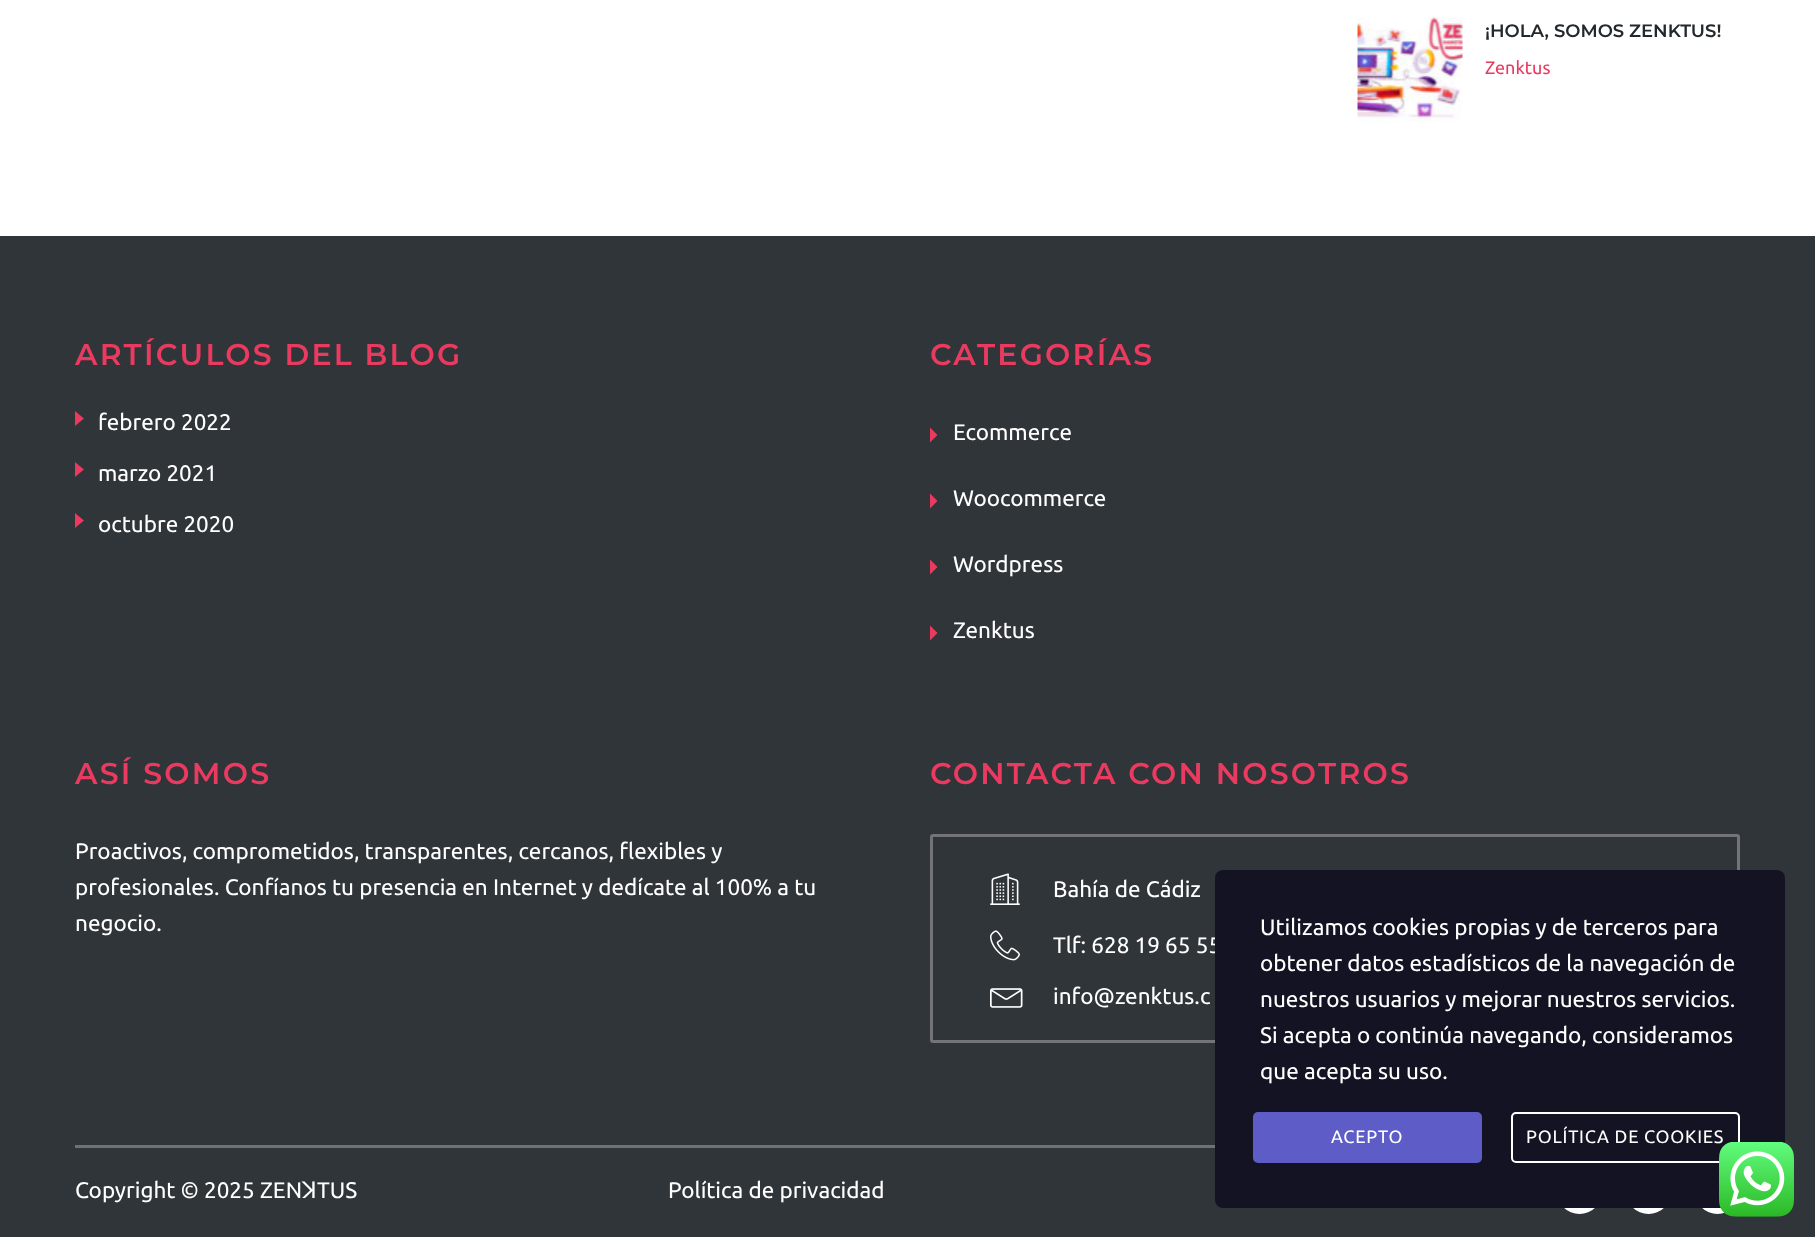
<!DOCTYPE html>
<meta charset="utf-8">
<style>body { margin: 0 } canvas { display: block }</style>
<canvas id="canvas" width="1815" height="1237"></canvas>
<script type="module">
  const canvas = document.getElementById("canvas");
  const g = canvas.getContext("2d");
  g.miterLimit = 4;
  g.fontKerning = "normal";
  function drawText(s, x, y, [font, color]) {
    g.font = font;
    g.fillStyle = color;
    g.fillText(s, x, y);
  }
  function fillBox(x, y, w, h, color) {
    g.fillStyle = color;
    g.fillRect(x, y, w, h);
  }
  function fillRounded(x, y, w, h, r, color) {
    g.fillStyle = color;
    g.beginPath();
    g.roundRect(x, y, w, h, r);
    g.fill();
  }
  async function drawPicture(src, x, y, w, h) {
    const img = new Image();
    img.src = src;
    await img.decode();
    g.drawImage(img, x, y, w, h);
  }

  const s1 = ["600 18px Montserrat", "#23282D"];
  const s2 = ["18px Ubuntu", "#EA3A60"];
  const s3 = ["600 30px Montserrat", "#EA3A60"];
  const s4 = ["22.5px Ubuntu", "#FFFFFF"];
  const s5 = ["22.5px DejaVu Sans", "#FFFFFF"];
  const s6 = ["18px Ubuntu", "#FFFFFF"];

  fillBox(0, 0, 1815, 1237, "#FFFFFF");
  await drawPicture("pic1.png", 1357, 17, 106, 105);
  drawText("¡HOLA, SOMOS ZENKTUS!", 1485, 37, s1);
  drawText("Zenktus", 1485, 74, s2);
  fillBox(0, 236, 1815, 1001, "#30353A");
  g.letterSpacing = "2.25px";
  drawText("ARTÍCULOS DEL BLOG", 75, 365, s3);
  g.beginPath();
  g.moveTo(75, 426);
  g.lineTo(75, 411);
  g.lineTo(84, 418.5);
  g.closePath();
  g.fill();
  g.letterSpacing = "0px";
  drawText("febrero 2022", 98, 430, s4);
  g.fillStyle = "#EA3A60";
  g.beginPath();
  g.moveTo(75, 477);
  g.lineTo(75, 462);
  g.lineTo(84, 469.5);
  g.closePath();
  g.fill();
  drawText("marzo 2021", 98, 481, s4);
  g.fillStyle = "#EA3A60";
  g.beginPath();
  g.moveTo(75, 528);
  g.lineTo(75, 513);
  g.lineTo(84, 520.5);
  g.closePath();
  g.fill();
  drawText("octubre 2020", 98, 532, s4);
  g.letterSpacing = "2.25px";
  drawText("CATEGORÍAS", 930, 365, s3);
  g.beginPath();
  g.moveTo(930, 442.5);
  g.lineTo(930, 427.5);
  g.lineTo(937.5, 435);
  g.closePath();
  g.fill();
  g.letterSpacing = "0px";
  drawText("Ecommerce", 953, 440, s4);
  g.fillStyle = "#EA3A60";
  g.beginPath();
  g.moveTo(930, 508.5);
  g.lineTo(930, 493.5);
  g.lineTo(937.5, 501);
  g.closePath();
  g.fill();
  drawText("Woocommerce", 953, 506, s4);
  g.fillStyle = "#EA3A60";
  g.beginPath();
  g.moveTo(930, 574.5);
  g.lineTo(930, 559.5);
  g.lineTo(937.5, 567);
  g.closePath();
  g.fill();
  drawText("Wordpress", 953, 572, s4);
  g.fillStyle = "#EA3A60";
  g.beginPath();
  g.moveTo(930, 640.5);
  g.lineTo(930, 625.5);
  g.lineTo(937.5, 633);
  g.closePath();
  g.fill();
  drawText("Zenktus", 953, 638, s4);
  g.letterSpacing = "2.25px";
  drawText("ASÍ SOMOS", 75, 784, s3);
  g.letterSpacing = "0px";
  drawText("Proactivos, comprometidos, transparentes, cercanos, flexibles y", 75, 859, s4);
  drawText("profesionales. Confíanos tu presencia en Internet y dedícate al 100% a tu", 75, 895, s4);
  drawText("negocio.", 75, 931, s4);
  g.letterSpacing = "2.25px";
  drawText("CONTACTA CON NOSOTROS", 930, 784, s3);
  g.beginPath();
  g.roundRect(931.5, 835.5, 807, 206, 1.5);
  g.strokeStyle = "#737478";
  g.lineWidth = 3;
  g.stroke();
  await drawPicture("pic2.png", 990, 873, 30, 32);
  g.letterSpacing = "0px";
  drawText("Bahía de Cádiz", 1053, 897, s4);
  await drawPicture("pic3.png", 990, 930, 30, 31);
  drawText("Tlf: 628 19 65 55", 1053, 953, s4);
  await drawPicture("pic4.png", 990, 988, 33, 20);
  drawText("info@zenktus.c", 1053, 1004, s4);
  fillBox(75, 1145, 1140, 3, "#6E7275");
  drawText("Copyright © 2025 ZEN", 75, 1198, s4);
  drawText("ꓘ", 302, 1198, s5);
  drawText("TUS", 317, 1198, s4);
  drawText("Política de privacidad", 668, 1198, s4);
  g.beginPath();
  g.arc(1579.5, 1191.5, 22.5, 0, Math.PI * 2);
  g.fill();
  g.beginPath();
  g.arc(1648.5, 1191.5, 22.5, 0, Math.PI * 2);
  g.fill();
  g.beginPath();
  g.arc(1717.5, 1191.5, 22.5, 0, Math.PI * 2);
  g.fill();
  fillRounded(1215, 870, 570, 338, 8, "#131323");
  drawText("Utilizamos cookies propias y de terceros para", 1260, 935, s4);
  drawText("obtener datos estadísticos de la navegación de", 1260, 971, s4);
  drawText("nuestros usuarios y mejorar nuestros servicios.", 1260, 1007, s4);
  drawText("Si acepta o continúa navegando, consideramos", 1260, 1043, s4);
  drawText("que acepta su uso.", 1260, 1079, s4);
  g.fillStyle = "#5E5CC7";
  g.beginPath();
  g.roundRect(1254, 1113, 227, 49, 4);
  g.fill();
  g.strokeStyle = "#5E5CC7";
  g.lineWidth = 2;
  g.stroke();
  g.letterSpacing = "0.75px";
  drawText("ACEPTO", 1331, 1143, s6);
  g.beginPath();
  g.roundRect(1512, 1113, 227, 49, 4);
  g.strokeStyle = "#FFFFFF";
  g.stroke();
  drawText("POLÍTICA DE COOKIES", 1526, 1143, s6);
  await drawPicture("pic5.png", 1719, 1142, 75, 75);
</script>
